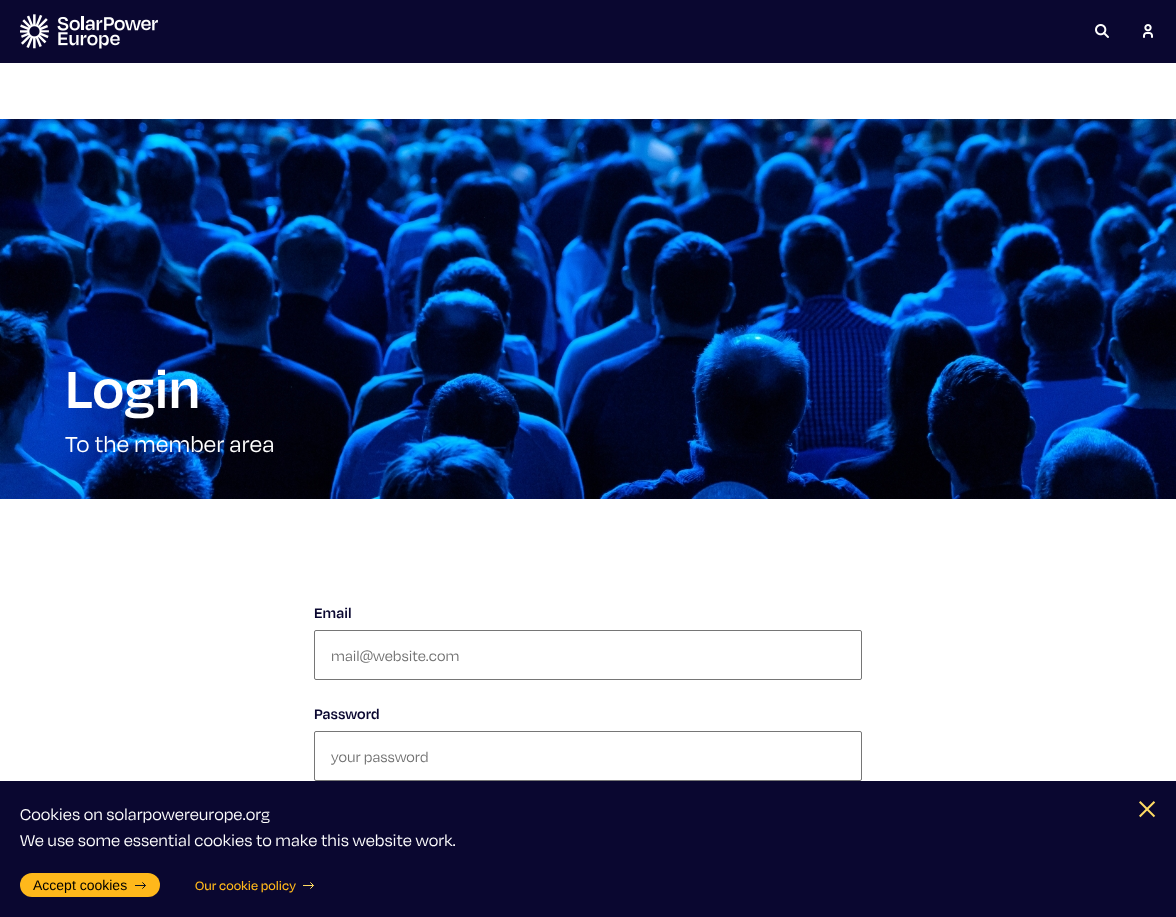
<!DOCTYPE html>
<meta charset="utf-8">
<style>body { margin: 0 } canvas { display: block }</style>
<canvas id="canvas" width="1176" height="917"></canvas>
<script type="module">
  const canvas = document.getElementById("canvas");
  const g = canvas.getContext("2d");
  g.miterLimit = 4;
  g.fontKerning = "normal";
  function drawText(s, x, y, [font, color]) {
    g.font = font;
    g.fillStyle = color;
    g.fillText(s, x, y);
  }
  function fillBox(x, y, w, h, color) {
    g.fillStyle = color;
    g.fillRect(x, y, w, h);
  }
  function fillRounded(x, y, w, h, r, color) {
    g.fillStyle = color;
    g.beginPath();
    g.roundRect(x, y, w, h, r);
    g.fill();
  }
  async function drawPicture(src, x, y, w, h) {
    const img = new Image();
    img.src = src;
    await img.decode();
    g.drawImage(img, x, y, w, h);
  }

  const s1 = ["600 60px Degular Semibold", "#FFFFFF"];
  const s2 = ["25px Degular", "#FFFFFF"];
  const s3 = ["600 16px Degular Semibold", "#0A0730"];
  const s4 = ["16px Degular", "#707070"];
  const s5 = ["18px Degular", "#FFFFFF"];
  const s6 = ["14px Liberation Sans", "#000000"];
  const s7 = ["500 14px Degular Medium", "#FFB81B"];

  fillBox(0, 0, 1176, 917, "#FFFFFF");
  fillBox(0, 0, 1176, 63, "#0A0730");
  await drawPicture("pic1.png", 20, 14, 138, 35);
  await drawPicture("pic2.png", 1095, 24, 14, 14);
  await drawPicture("pic3.png", 1143, 24, 10, 14);
  await drawPicture("pic4.png", 0, 119, 1176, 380);
  drawText("Login", 65, 408, s1);
  drawText("To the member area", 65, 452, s2);
  drawText("Email", 314, 618, s3);
  g.beginPath();
  g.roundRect(314.5, 630.5, 547, 49, 1.5);
  g.strokeStyle = "#767676";
  g.stroke();
  drawText("mail@website.com", 331, 661, s4);
  drawText("Password", 314, 719, s3);
  g.beginPath();
  g.roundRect(314.5, 731.5, 547, 49, 1.5);
  g.stroke();
  drawText("your password", 331, 762, s4);
  fillBox(0, 781, 1176, 136, "#0A0730");
  drawText("Cookies on solarpowereurope.org", 20, 820, s5);
  drawText("We use some essential cookies to make this website work.", 20, 846, s5);
  await drawPicture("pic5.png", 1139, 801, 17, 17);
  fillRounded(20, 873, 140, 24, 12, "#FFB81B");
  drawText("Accept cookies", 33, 890, s6);
  await drawPicture("pic6.png", 135, 882, 11, 7);
  drawText("Our cookie policy", 195, 890, s7);
  await drawPicture("pic7.png", 303, 882, 11, 7);
</script>
